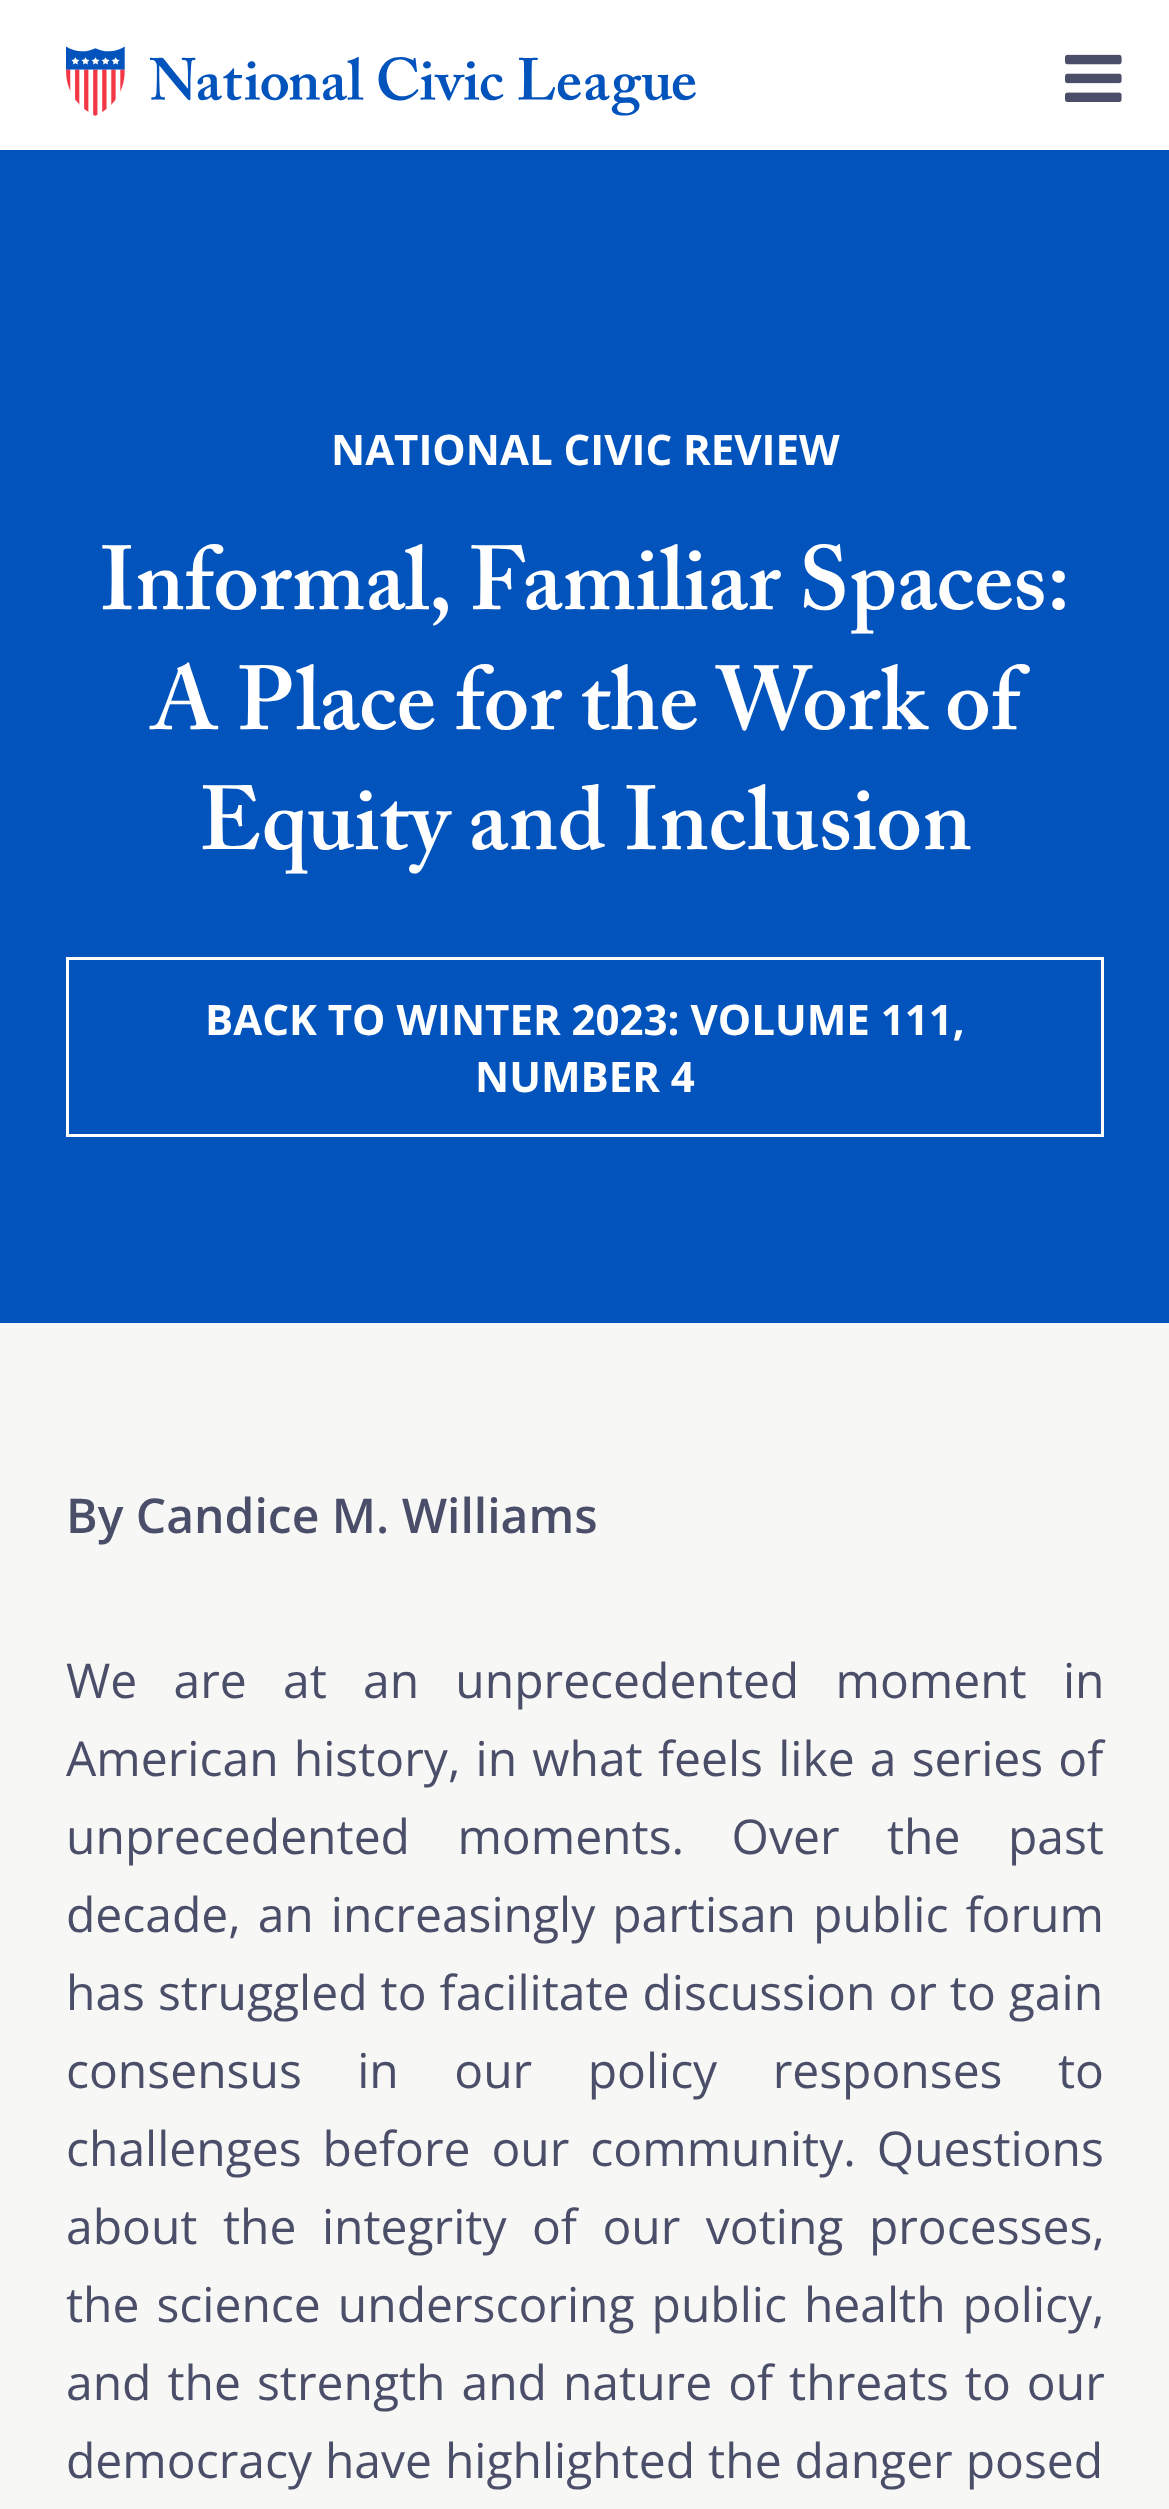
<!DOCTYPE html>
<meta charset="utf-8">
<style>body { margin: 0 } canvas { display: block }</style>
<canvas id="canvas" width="1169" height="2509"></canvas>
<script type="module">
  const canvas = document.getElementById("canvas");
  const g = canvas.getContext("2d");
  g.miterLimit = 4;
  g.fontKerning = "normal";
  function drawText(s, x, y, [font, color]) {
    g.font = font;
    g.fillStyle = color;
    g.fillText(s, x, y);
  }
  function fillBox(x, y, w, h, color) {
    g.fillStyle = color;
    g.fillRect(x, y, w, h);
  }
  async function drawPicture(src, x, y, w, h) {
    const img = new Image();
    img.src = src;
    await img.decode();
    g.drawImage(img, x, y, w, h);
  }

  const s1 = ["bold 42px Open Sans", "#FFFFFF"];
  const s2 = ["600 90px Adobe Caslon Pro", "#FFFFFF"];
  const s3 = ["600 48px Open Sans", "#4A4E69"];
  const s4 = ["48px Open Sans", "#4A4E69"];

  fillBox(0, 0, 1169, 2509, "#F7F7F5");
  fillBox(0, 0, 1169, 150, "#FFFFFF");
  await drawPicture("pic1.png", 66, 46, 630, 70);
  await drawPicture("pic2.png", 1065, 54, 57, 48);
  fillBox(0, 150, 1169, 1173, "#0253BC");
  drawText("NATIONAL CIVIC REVIEW", 331, 465, s1);
  drawText("Informal, Familiar Spaces:", 100, 609, s2);
  drawText("A Place for the Work of", 151, 729, s2);
  drawText("Equity and Inclusion", 199, 849, s2);
  g.strokeStyle = "#FFFFFF";
  g.lineWidth = 3;
  g.strokeRect(67.5, 958.5, 1035, 177);
  drawText("BACK TO WINTER 2023: VOLUME 111,", 205, 1035, s1);
  drawText("NUMBER 4", 475, 1092, s1);
  drawText("By Candice M. Williams", 66, 1533, s3);
  g.wordSpacing = "23.75px";
  drawText("We are at an unprecedented moment in", 66, 1698, s4);
  g.wordSpacing = "2.75px";
  drawText("American history, in what feels like a series of", 66, 1776, s4);
  g.wordSpacing = "35px";
  drawText("unprecedented moments. Over the past", 66, 1854, s4);
  g.wordSpacing = "4.5px";
  drawText("decade, an increasingly partisan public forum", 66, 1932, s4);
  g.wordSpacing = "0.5px";
  drawText("has struggled to facilitate discussion or to gain", 66, 2010, s4);
  g.wordSpacing = "43px";
  drawText("consensus in our policy responses to", 66, 2088, s4);
  g.wordSpacing = "8.5px";
  drawText("challenges before our community. Questions", 66, 2166, s4);
  g.wordSpacing = "13px";
  drawText("about the integrity of our voting processes,", 66, 2244, s4);
  g.wordSpacing = "4.5px";
  drawText("the science underscoring public health policy,", 66, 2322, s4);
  g.wordSpacing = "3.5px";
  drawText("and the strength and nature of threats to our", 66, 2400, s4);
  g.wordSpacing = "0.5px";
  drawText("democracy have highlighted the danger posed", 66, 2478, s4);
</script>
